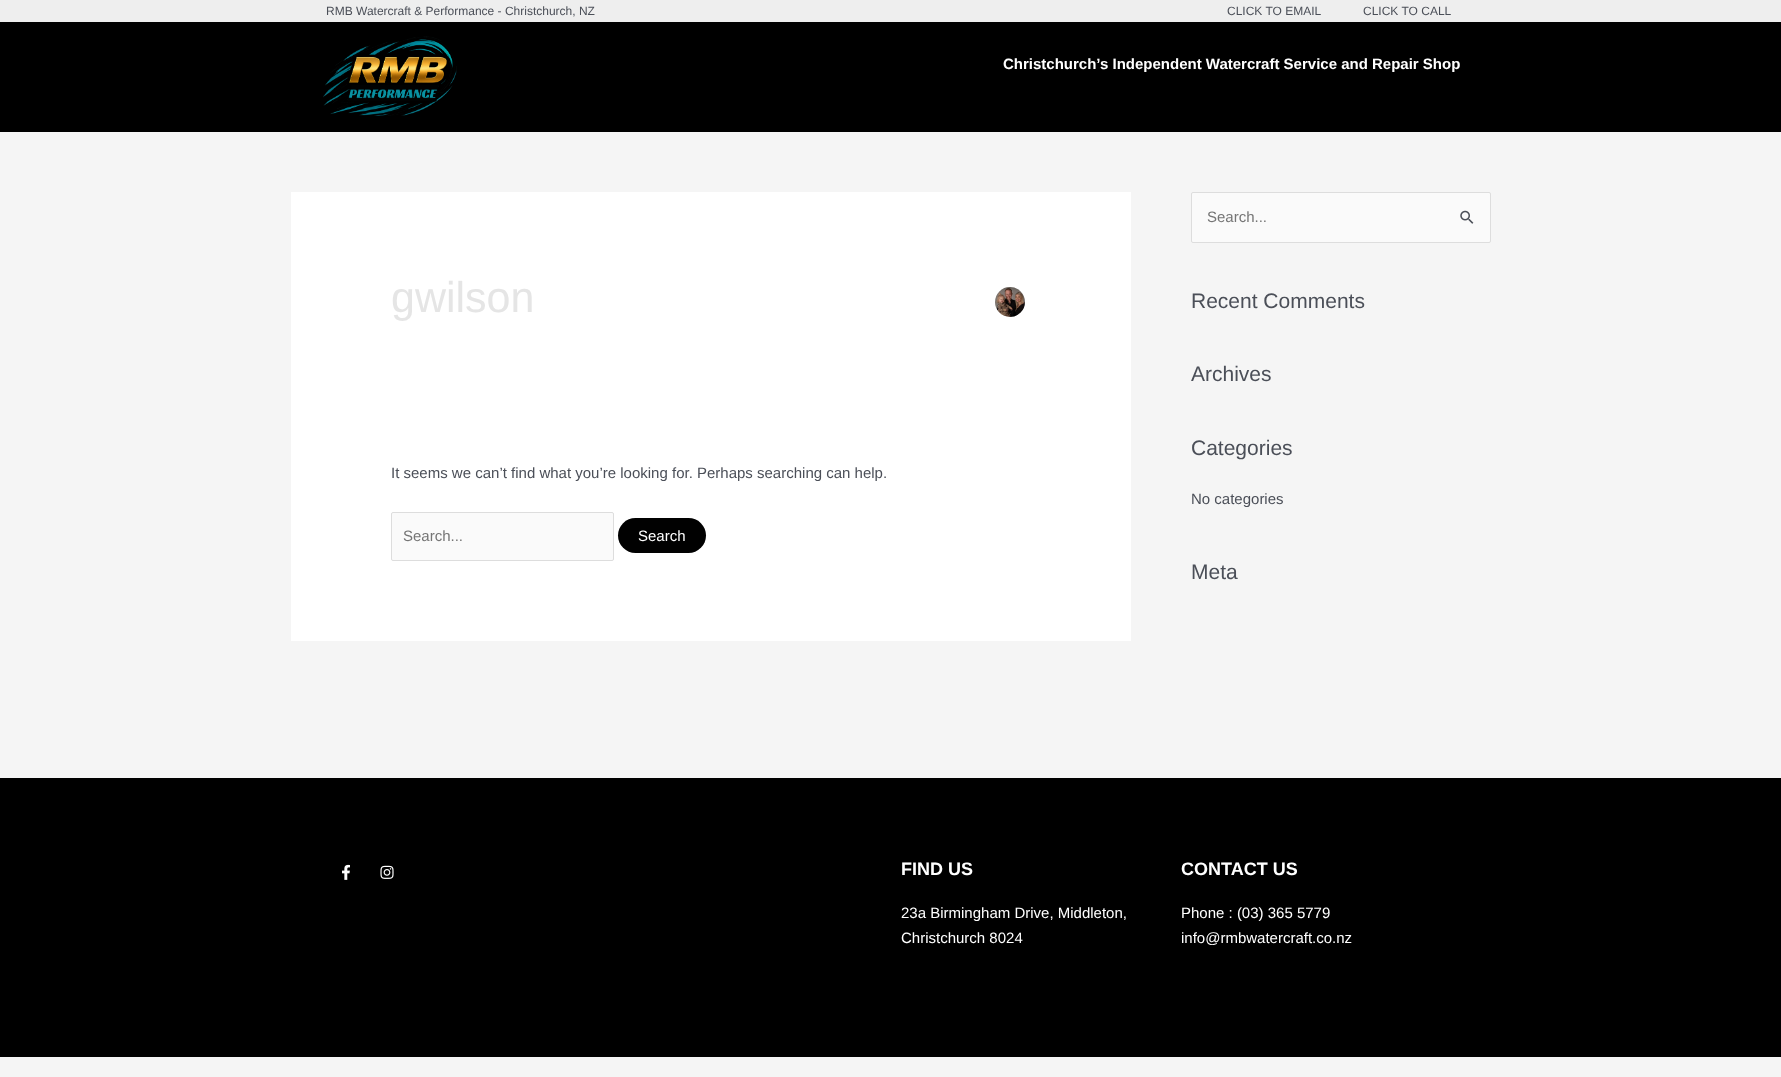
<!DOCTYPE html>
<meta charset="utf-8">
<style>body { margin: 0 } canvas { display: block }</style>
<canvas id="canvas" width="1781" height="1077"></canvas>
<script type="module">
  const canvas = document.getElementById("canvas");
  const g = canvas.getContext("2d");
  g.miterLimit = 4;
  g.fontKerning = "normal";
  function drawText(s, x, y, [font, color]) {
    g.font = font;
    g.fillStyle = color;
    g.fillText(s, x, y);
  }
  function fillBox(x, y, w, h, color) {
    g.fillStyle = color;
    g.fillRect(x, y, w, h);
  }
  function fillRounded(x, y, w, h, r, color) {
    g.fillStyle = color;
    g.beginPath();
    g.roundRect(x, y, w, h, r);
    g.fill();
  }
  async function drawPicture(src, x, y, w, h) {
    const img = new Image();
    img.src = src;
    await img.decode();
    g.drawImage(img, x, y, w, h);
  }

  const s1 = ["12px Liberation Sans", "#4B4F58"];
  const s2 = ["bold 15px Liberation Sans", "#FFFFFF"];
  const s3 = ["43px Liberation Sans", "#E5E5E5"];
  const s4 = ["15px Liberation Sans", "#4B4F58"];
  const s5 = ["15px Liberation Sans", "#757575"];
  const s6 = ["15px Liberation Sans", "#FFFFFF"];
  const s7 = ["21px Liberation Sans", "#4B4F58"];
  const s8 = ["bold 18px Liberation Sans", "#FFFFFF"];

  fillBox(0, 0, 1781, 1077, "#F5F5F5");
  fillBox(0, 0, 1781, 22, "#EEEEEE");
  drawText("RMB Watercraft & Performance - Christchurch, NZ", 326, 15, s1);
  drawText("CLICK TO EMAIL", 1227, 15, s1);
  drawText("CLICK TO CALL", 1363, 15, s1);
  fillBox(0, 22, 1781, 110, "#000000");
  await drawPicture("pic1.png", 323, 36, 134, 80);
  drawText("Christchurch’s Independent Watercraft Service and Repair Shop", 1003, 69, s2);
  fillBox(291, 192, 840, 449, "#FFFFFF");
  drawText("gwilson", 391, 312, s3);
  await drawPicture("pic2.png", 995, 287, 30, 30);
  drawText("It seems we can’t find what you’re looking for. Perhaps searching can help.", 391, 478, s4);
  g.fillStyle = "#FAFAFA";
  g.beginPath();
  g.roundRect(391.5, 512.5, 222, 48, 1.5);
  g.fill();
  g.strokeStyle = "#DDDDDD";
  g.stroke();
  drawText("Search...", 403, 541, s5);
  fillRounded(618, 518, 88, 35, 17.5, "#010101");
  drawText("Search", 638, 541, s6);
  g.fillStyle = "#FAFAFA";
  g.beginPath();
  g.roundRect(1191.5, 192.5, 299, 50, 1.5);
  g.fill();
  g.stroke();
  drawText("Search...", 1207, 222, s5);
  await drawPicture("pic3.png", 1460, 210, 14, 14);
  drawText("Recent Comments", 1191, 308, s7);
  drawText("Archives", 1191, 381, s7);
  drawText("Categories", 1191, 455, s7);
  drawText("No categories", 1191, 504, s4);
  drawText("Meta", 1191, 579, s7);
  fillBox(0, 778, 1781, 279, "#000000");
  await drawPicture("pic4.png", 342, 864, 8, 16);
  await drawPicture("pic5.png", 380, 865, 14, 14);
  drawText("FIND US", 901, 875, s8);
  drawText("23a Birmingham Drive, Middleton,", 901, 918, s6);
  drawText("Christchurch 8024", 901, 943, s6);
  drawText("CONTACT US", 1181, 875, s8);
  drawText("Phone : (03) 365 5779", 1181, 918, s6);
  drawText("info@rmbwatercraft.co.nz", 1181, 943, s6);
</script>
